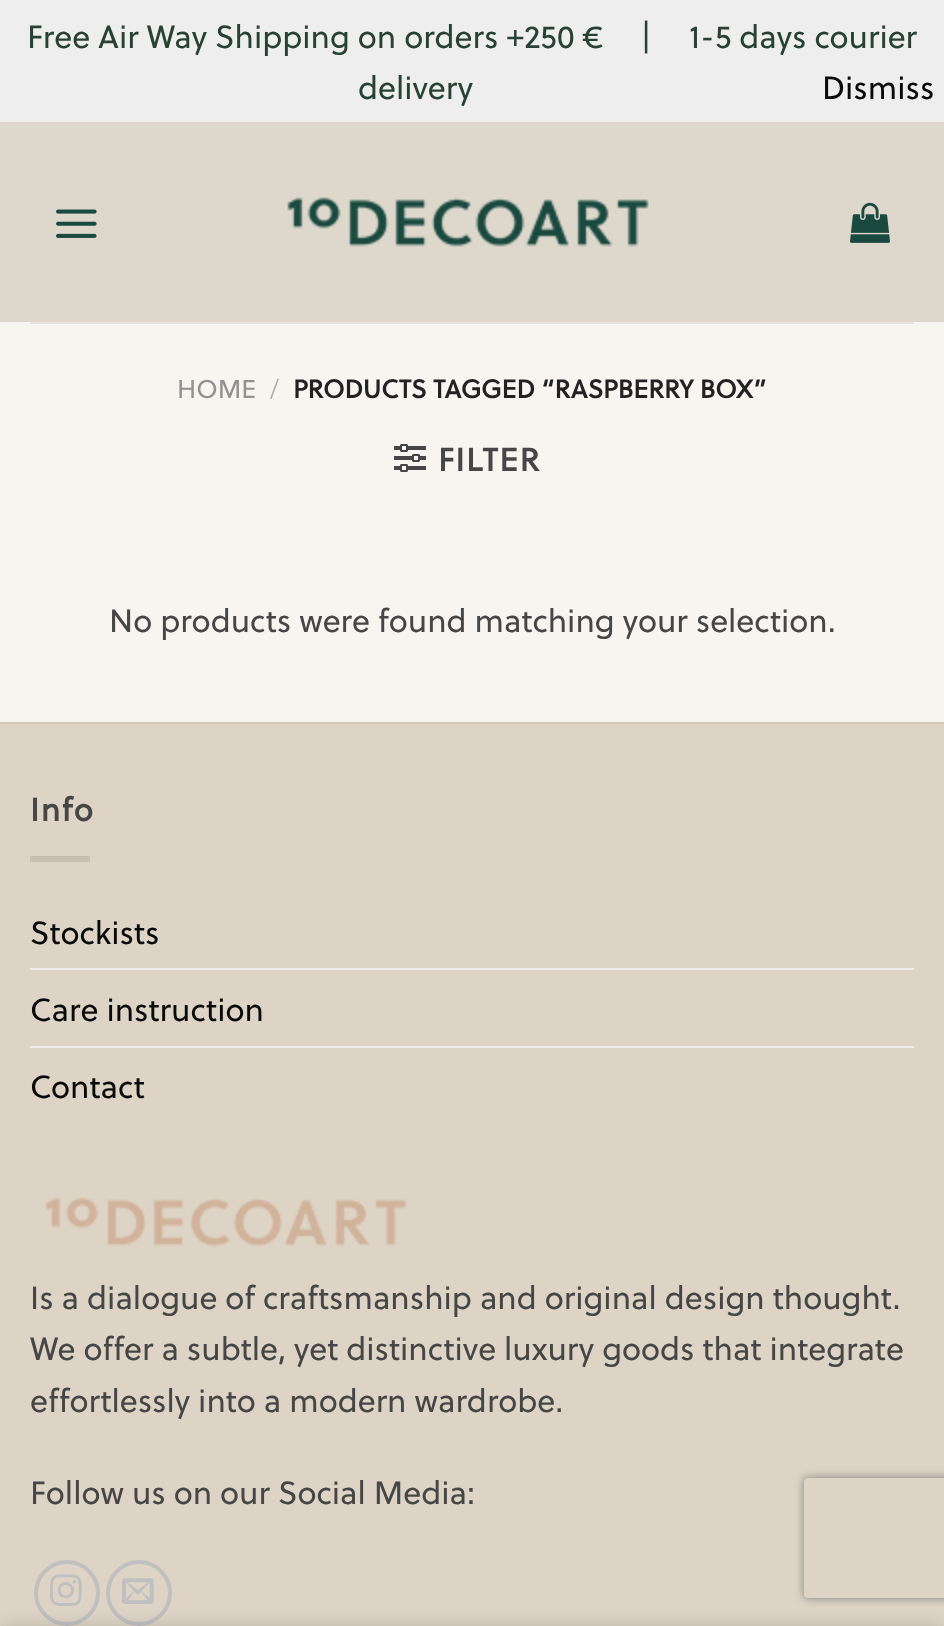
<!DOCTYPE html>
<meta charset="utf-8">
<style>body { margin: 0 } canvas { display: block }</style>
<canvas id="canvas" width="944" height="1626"></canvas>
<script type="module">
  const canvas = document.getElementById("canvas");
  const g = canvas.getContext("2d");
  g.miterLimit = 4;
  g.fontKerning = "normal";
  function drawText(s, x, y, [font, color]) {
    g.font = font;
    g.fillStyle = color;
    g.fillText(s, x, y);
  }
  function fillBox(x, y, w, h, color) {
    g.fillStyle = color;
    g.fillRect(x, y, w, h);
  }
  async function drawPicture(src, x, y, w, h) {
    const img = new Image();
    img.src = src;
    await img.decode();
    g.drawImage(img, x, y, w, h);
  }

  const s1 = ["32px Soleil", "#274235"];
  const s2 = ["32px Soleil", "#0A0A0A"];
  const s3 = ["25.6px Soleil", "#929190"];
  const s4 = ["300 25.6px Soleil", "#ADABA9"];
  const s5 = ["bold 25.6px Soleil", "#222222"];
  const s6 = ["bold 32px Soleil", "#464646"];
  const s7 = ["32px Soleil", "#464646"];

  fillBox(0, 0, 944, 1626, "#EEEEEE");
  drawText("Free Air Way Shipping on orders +250 €", 27, 48, s1);
  drawText("|", 641, 48, s1);
  drawText("1-5 days courier", 689, 48, s1);
  drawText("delivery", 358, 99, s1);
  drawText("Dismiss", 822, 99, s2);
  fillBox(0, 322, 944, 400, "#F8F5F1");
  fillBox(0, 122, 944, 200, "#DDD7CC");
  await drawPicture("pic1.png", 56, 209, 41, 29);
  await drawPicture("pic2.png", 287, 197, 362, 50);
  await drawPicture("pic3.png", 850, 202, 40, 41);
  fillBox(30, 322, 884, 2, "#E6E4E0");
  drawText("HOME", 177, 398, s3);
  drawText("/", 270, 398, s4);
  drawText("PRODUCTS TAGGED “RASPBERRY BOX”", 293, 398, s5);
  await drawPicture("pic4.png", 394, 444, 32, 28);
  g.letterSpacing = "1.5px";
  drawText("FILTER", 438, 471, s6);
  g.letterSpacing = "0px";
  drawText("No products were found matching your selection.", 109, 632, s7);
  fillBox(0, 724, 944, 902, "#DDD4C5");
  fillBox(0, 722, 944, 2, "#D2C9BB");
  g.letterSpacing = "1.5px";
  drawText("Info", 30, 821, s6);
  fillBox(30, 856, 60, 6, "#C7BFB1");
  g.letterSpacing = "0px";
  drawText("Stockists", 30, 944, s2);
  fillBox(30, 968, 884, 2, "#ECECEC");
  drawText("Care instruction", 30, 1021, s2);
  fillBox(30, 1046, 884, 2, "#ECECEC");
  drawText("Contact", 30, 1098, s2);
  await drawPicture("pic5.png", 45, 1197, 362, 50);
  drawText("Is a dialogue of craftsmanship and original design thought.", 30, 1309, s7);
  drawText("We offer a subtle, yet distinctive luxury goods that integrate", 30, 1360, s7);
  drawText("effortlessly into a modern wardrobe.", 30, 1412, s7);
  drawText("Follow us on our Social Media:", 30, 1504, s7);
  g.beginPath();
  g.arc(67, 1593, 31, 0, Math.PI * 2);
  g.strokeStyle = "#C0C0C0";
  g.lineWidth = 4;
  g.stroke();
  await drawPicture("pic6.png", 50, 1574, 32, 32);
  g.beginPath();
  g.arc(139, 1593, 31, 0, Math.PI * 2);
  g.stroke();
  await drawPicture("pic7.png", 122, 1578, 32, 26);
  g.save();
  g.beginPath();
  g.moveTo(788, 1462);
  g.lineTo(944, 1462);
  g.lineTo(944, 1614);
  g.lineTo(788, 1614);
  g.closePath();
  g.moveTo(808, 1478);
  g.lineTo(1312, 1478);
  g.bezierCurveTo(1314, 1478, 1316, 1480, 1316, 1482);
  g.lineTo(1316, 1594);
  g.bezierCurveTo(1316, 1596, 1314, 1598, 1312, 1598);
  g.lineTo(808, 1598);
  g.bezierCurveTo(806, 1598, 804, 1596, 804, 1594);
  g.lineTo(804, 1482);
  g.bezierCurveTo(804, 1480, 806, 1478, 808, 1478);
  g.closePath();
  g.clip("evenodd");
  g.fillStyle = "#808080";
  g.filter = "blur(5px)";
  g.beginPath();
  g.roundRect(804, 1478, 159, 120, 4);
  g.fill();
  g.filter = "none";
  g.restore();
  g.fillStyle = "rgba(0, 0, 0, 0.14)";
  g.filter = "blur(9px)";
  g.beginPath();
  g.rect(0, 1626, 944, 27);
  g.fill();
  g.filter = "none";
</script>
